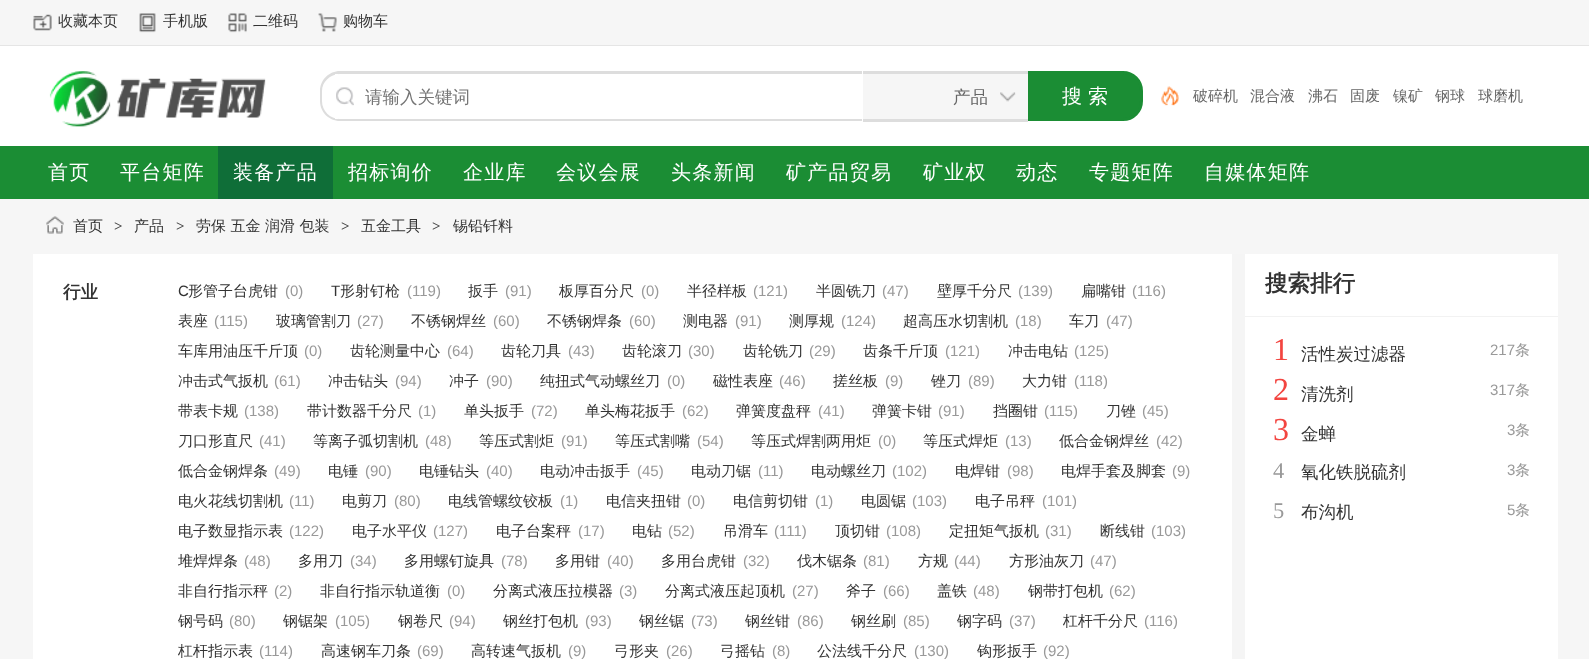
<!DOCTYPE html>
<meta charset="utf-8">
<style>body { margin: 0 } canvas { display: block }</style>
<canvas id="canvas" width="1589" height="659"></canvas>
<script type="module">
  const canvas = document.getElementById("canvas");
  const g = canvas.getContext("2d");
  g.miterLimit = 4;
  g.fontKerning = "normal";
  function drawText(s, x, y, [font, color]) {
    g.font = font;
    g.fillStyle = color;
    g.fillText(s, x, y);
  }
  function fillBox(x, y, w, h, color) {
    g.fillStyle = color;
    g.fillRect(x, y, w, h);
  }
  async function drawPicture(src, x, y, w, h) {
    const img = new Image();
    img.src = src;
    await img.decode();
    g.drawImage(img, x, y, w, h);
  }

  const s1 = ["500 15px WenQuanYi Zen Hei", "#333333"];
  const s2 = ["500 17.5px WenQuanYi Zen Hei", "#757575"];
  const s3 = ["500 17.5px WenQuanYi Zen Hei", "#666666"];
  const s4 = ["500 20px WenQuanYi Zen Hei", "#FFFFFF"];
  const s5 = ["500 15px WenQuanYi Zen Hei", "#666666"];
  const s6 = ["bold 15px Liberation Serif", "#444444"];
  const s7 = ["bold 17.5px WenQuanYi Zen Hei", "#333333"];
  const s8 = ["15px Liberation Sans", "#333333"];
  const s9 = ["15px Liberation Sans", "#999999"];
  const s10 = ["bold 22.5px WenQuanYi Zen Hei", "#333333"];
  const s11 = ["32px Liberation Serif", "#F34540"];
  const s12 = ["500 17.5px WenQuanYi Zen Hei", "#333333"];
  const s13 = ["500 15px WenQuanYi Zen Hei", "#999999"];
  const s14 = ["22.5px Liberation Serif", "#999999"];

  fillBox(0, 0, 1589, 659, "#F6F6F6");
  fillBox(0, 45, 1589, 1, "#E5E5E5");
  await drawPicture("pic1.png", 33, 14, 19, 17);
  drawText("收藏本页", 58, 26, s1);
  await drawPicture("pic2.png", 139, 13, 17, 20);
  drawText("手机版", 163, 26, s1);
  await drawPicture("pic3.png", 228, 13, 19, 20);
  drawText("二维码", 253, 26, s1);
  await drawPicture("pic4.png", 318, 13, 19, 19);
  drawText("购物车", 343, 26, s1);
  fillBox(0, 46, 1589, 100, "#FFFFFF");
  await drawPicture("pic5.png", 49, 71, 217, 56);
  g.fillStyle = "#DDDDDD";
  g.beginPath();
  g.moveTo(340, 71);
  g.lineTo(862, 71);
  g.lineTo(862, 121);
  g.lineTo(340, 121);
  g.bezierCurveTo(329, 121, 320, 112, 320, 101);
  g.lineTo(320, 91);
  g.bezierCurveTo(320, 80, 329, 71, 340, 71);
  g.closePath();
  g.moveTo(340, 74);
  g.lineTo(862, 74);
  g.lineTo(862, 119);
  g.lineTo(340, 119);
  g.bezierCurveTo(330, 119, 322, 111, 322, 101);
  g.lineTo(322, 91);
  g.bezierCurveTo(322, 82, 330, 74, 340, 74);
  g.closePath();
  g.fill("evenodd");
  fillBox(335, 74, 3, 45, "#FFFFFF");
  await drawPicture("pic6.png", 336, 87, 18, 19);
  drawText("请输入关键词", 365, 103, s2);
  fillBox(863, 74, 165, 45, "#F6F6F6");
  fillBox(863, 71, 165, 3, "#DDDDDD");
  fillBox(863, 119, 165, 3, "#DDDDDD");
  await drawPicture("pic7.png", 1000, 92, 16, 10);
  drawText("产品", 953, 103, s3);
  g.fillStyle = "#1B8D34";
  g.beginPath();
  g.roundRect(1029.5, 72.5, 112, 47, [0, 18.5, 18.5, 0]);
  g.fill();
  g.strokeStyle = "#1B8D34";
  g.lineWidth = 3;
  g.stroke();
  drawText("搜 索", 1062, 103, s4);
  await drawPicture("pic8.png", 1161, 86, 18, 20);
  drawText("破碎机", 1193, 101, s5);
  drawText("混合液", 1250, 101, s5);
  drawText("沸石", 1308, 101, s5);
  drawText("固废", 1350, 101, s5);
  drawText("镍矿", 1393, 101, s5);
  drawText("钢球", 1435, 101, s5);
  drawText("球磨机", 1478, 101, s5);
  fillBox(0, 146, 1589, 53, "#1B8D34");
  g.letterSpacing = "1.25px";
  drawText("首页", 48, 179, s4);
  drawText("平台矩阵", 120, 179, s4);
  fillBox(218, 146, 115, 53, "#0F6E38");
  drawText("装备产品", 233, 179, s4);
  drawText("招标询价", 348, 179, s4);
  drawText("企业库", 463, 179, s4);
  drawText("会议会展", 556, 179, s4);
  drawText("头条新闻", 671, 179, s4);
  drawText("矿产品贸易", 786, 179, s4);
  drawText("矿业权", 923, 179, s4);
  drawText("动态", 1016, 179, s4);
  drawText("专题矩阵", 1089, 179, s4);
  drawText("自媒体矩阵", 1204, 179, s4);
  await drawPicture("pic9.png", 46, 216, 18, 18);
  g.letterSpacing = "0px";
  drawText("首页", 73, 231, s1);
  drawText(">", 114, 231, s6);
  drawText("产品", 134, 231, s1);
  drawText(">", 176, 231, s6);
  drawText("劳保 五金 润滑 包装", 196, 231, s1);
  drawText(">", 341, 231, s6);
  drawText("五金工具", 361, 231, s1);
  drawText(">", 432, 231, s6);
  drawText("锡铅钎料", 453, 231, s1);
  fillBox(33, 254, 1525, 405, "#FFFFFF");
  fillBox(1232, 254, 13, 405, "#F5F5F5");
  drawText("行业", 63, 298, s7);
  drawText("C", 178, 296, s8);
  drawText("形管子台虎钳", 188, 296, s1);
  drawText("(0)", 285, 296, s9);
  drawText("T", 331, 296, s8);
  drawText("形射钉枪", 340, 296, s1);
  drawText("(119)", 407, 296, s9);
  drawText("扳手", 468, 296, s1);
  drawText("(91)", 505, 296, s9);
  drawText("板厚百分尺", 559, 296, s1);
  drawText("(0)", 641, 296, s9);
  drawText("半径样板", 687, 296, s1);
  drawText("(121)", 753, 296, s9);
  drawText("半圆铣刀", 816, 296, s1);
  drawText("(47)", 882, 296, s9);
  drawText("壁厚千分尺", 937, 296, s1);
  drawText("(139)", 1018, 296, s9);
  drawText("扁嘴钳", 1081, 296, s1);
  drawText("(116)", 1132, 296, s9);
  drawText("表座", 178, 326, s1);
  drawText("(115)", 214, 326, s9);
  drawText("玻璃管割刀", 276, 326, s1);
  drawText("(27)", 357, 326, s9);
  drawText("不锈钢焊丝", 411, 326, s1);
  drawText("(60)", 493, 326, s9);
  drawText("不锈钢焊条", 547, 326, s1);
  drawText("(60)", 629, 326, s9);
  drawText("测电器", 683, 326, s1);
  drawText("(91)", 735, 326, s9);
  drawText("测厚规", 789, 326, s1);
  drawText("(124)", 841, 326, s9);
  drawText("超高压水切割机", 903, 326, s1);
  drawText("(18)", 1015, 326, s9);
  drawText("车刀", 1069, 326, s1);
  drawText("(47)", 1106, 326, s9);
  drawText("车库用油压千斤顶", 178, 356, s1);
  drawText("(0)", 304, 356, s9);
  drawText("齿轮测量中心", 350, 356, s1);
  drawText("(64)", 447, 356, s9);
  drawText("齿轮刀具", 501, 356, s1);
  drawText("(43)", 568, 356, s9);
  drawText("齿轮滚刀", 622, 356, s1);
  drawText("(30)", 688, 356, s9);
  drawText("齿轮铣刀", 743, 356, s1);
  drawText("(29)", 809, 356, s9);
  drawText("齿条千斤顶", 863, 356, s1);
  drawText("(121)", 945, 356, s9);
  drawText("冲击电钻", 1008, 356, s1);
  drawText("(125)", 1074, 356, s9);
  drawText("冲击式气扳机", 178, 386, s1);
  drawText("(61)", 274, 386, s9);
  drawText("冲击钻头", 328, 386, s1);
  drawText("(94)", 395, 386, s9);
  drawText("冲子", 449, 386, s1);
  drawText("(90)", 486, 386, s9);
  drawText("纯扭式气动螺丝刀", 540, 386, s1);
  drawText("(0)", 667, 386, s9);
  drawText("磁性表座", 713, 386, s1);
  drawText("(46)", 779, 386, s9);
  drawText("搓丝板", 833, 386, s1);
  drawText("(9)", 885, 386, s9);
  drawText("锉刀", 931, 386, s1);
  drawText("(89)", 968, 386, s9);
  drawText("大力钳", 1022, 386, s1);
  drawText("(118)", 1074, 386, s9);
  drawText("带表卡规", 178, 416, s1);
  drawText("(138)", 244, 416, s9);
  drawText("带计数器千分尺", 307, 416, s1);
  drawText("(1)", 418, 416, s9);
  drawText("单头扳手", 464, 416, s1);
  drawText("(72)", 531, 416, s9);
  drawText("单头梅花扳手", 585, 416, s1);
  drawText("(62)", 682, 416, s9);
  drawText("弹簧度盘秤", 736, 416, s1);
  drawText("(41)", 818, 416, s9);
  drawText("弹簧卡钳", 872, 416, s1);
  drawText("(91)", 938, 416, s9);
  drawText("挡圈钳", 993, 416, s1);
  drawText("(115)", 1044, 416, s9);
  drawText("刀锉", 1106, 416, s1);
  drawText("(45)", 1142, 416, s9);
  drawText("刀口形直尺", 178, 446, s1);
  drawText("(41)", 259, 446, s9);
  drawText("等离子弧切割机", 313, 446, s1);
  drawText("(48)", 425, 446, s9);
  drawText("等压式割炬", 479, 446, s1);
  drawText("(91)", 561, 446, s9);
  drawText("等压式割嘴", 615, 446, s1);
  drawText("(54)", 697, 446, s9);
  drawText("等压式焊割两用炬", 751, 446, s1);
  drawText("(0)", 878, 446, s9);
  drawText("等压式焊炬", 923, 446, s1);
  drawText("(13)", 1005, 446, s9);
  drawText("低合金钢焊丝", 1059, 446, s1);
  drawText("(42)", 1156, 446, s9);
  drawText("低合金钢焊条", 178, 476, s1);
  drawText("(49)", 274, 476, s9);
  drawText("电锤", 328, 476, s1);
  drawText("(90)", 365, 476, s9);
  drawText("电锤钻头", 419, 476, s1);
  drawText("(40)", 486, 476, s9);
  drawText("电动冲击扳手", 540, 476, s1);
  drawText("(45)", 637, 476, s9);
  drawText("电动刀锯", 691, 476, s1);
  drawText("(11)", 758, 476, s9);
  drawText("电动螺丝刀", 811, 476, s1);
  drawText("(102)", 892, 476, s9);
  drawText("电焊钳", 955, 476, s1);
  drawText("(98)", 1007, 476, s9);
  drawText("电焊手套及脚套", 1061, 476, s1);
  drawText("(9)", 1172, 476, s9);
  drawText("电火花线切割机", 178, 506, s1);
  drawText("(11)", 289, 506, s9);
  drawText("电剪刀", 342, 506, s1);
  drawText("(80)", 394, 506, s9);
  drawText("电线管螺纹铰板", 448, 506, s1);
  drawText("(1)", 560, 506, s9);
  drawText("电信夹扭钳", 606, 506, s1);
  drawText("(0)", 687, 506, s9);
  drawText("电信剪切钳", 733, 506, s1);
  drawText("(1)", 815, 506, s9);
  drawText("电圆锯", 861, 506, s1);
  drawText("(103)", 912, 506, s9);
  drawText("电子吊秤", 975, 506, s1);
  drawText("(101)", 1042, 506, s9);
  drawText("电子数显指示表", 178, 536, s1);
  drawText("(122)", 289, 536, s9);
  drawText("电子水平仪", 352, 536, s1);
  drawText("(127)", 433, 536, s9);
  drawText("电子台案秤", 496, 536, s1);
  drawText("(17)", 578, 536, s9);
  drawText("电钻", 632, 536, s1);
  drawText("(52)", 668, 536, s9);
  drawText("吊滑车", 723, 536, s1);
  drawText("(111)", 774, 536, s9);
  drawText("顶切钳", 835, 536, s1);
  drawText("(108)", 886, 536, s9);
  drawText("定扭矩气扳机", 949, 536, s1);
  drawText("(31)", 1045, 536, s9);
  drawText("断线钳", 1100, 536, s1);
  drawText("(103)", 1151, 536, s9);
  drawText("堆焊焊条", 178, 566, s1);
  drawText("(48)", 244, 566, s9);
  drawText("多用刀", 298, 566, s1);
  drawText("(34)", 350, 566, s9);
  drawText("多用螺钉旋具", 404, 566, s1);
  drawText("(78)", 501, 566, s9);
  drawText("多用钳", 555, 566, s1);
  drawText("(40)", 607, 566, s9);
  drawText("多用台虎钳", 661, 566, s1);
  drawText("(32)", 743, 566, s9);
  drawText("伐木锯条", 797, 566, s1);
  drawText("(81)", 863, 566, s9);
  drawText("方规", 918, 566, s1);
  drawText("(44)", 954, 566, s9);
  drawText("方形油灰刀", 1009, 566, s1);
  drawText("(47)", 1090, 566, s9);
  drawText("非自行指示秤", 178, 596, s1);
  drawText("(2)", 274, 596, s9);
  drawText("非自行指示轨道衡", 320, 596, s1);
  drawText("(0)", 447, 596, s9);
  drawText("分离式液压拉模器", 493, 596, s1);
  drawText("(3)", 619, 596, s9);
  drawText("分离式液压起顶机", 665, 596, s1);
  drawText("(27)", 792, 596, s9);
  drawText("斧子", 846, 596, s1);
  drawText("(66)", 883, 596, s9);
  drawText("盖铁", 937, 596, s1);
  drawText("(48)", 973, 596, s9);
  drawText("钢带打包机", 1028, 596, s1);
  drawText("(62)", 1109, 596, s9);
  drawText("钢号码", 178, 626, s1);
  drawText("(80)", 229, 626, s9);
  drawText("钢锯架", 283, 626, s1);
  drawText("(105)", 335, 626, s9);
  drawText("钢卷尺", 398, 626, s1);
  drawText("(94)", 449, 626, s9);
  drawText("钢丝打包机", 503, 626, s1);
  drawText("(93)", 585, 626, s9);
  drawText("钢丝锯", 639, 626, s1);
  drawText("(73)", 691, 626, s9);
  drawText("钢丝钳", 745, 626, s1);
  drawText("(86)", 797, 626, s9);
  drawText("钢丝刷", 851, 626, s1);
  drawText("(85)", 903, 626, s9);
  drawText("钢字码", 957, 626, s1);
  drawText("(37)", 1009, 626, s9);
  drawText("杠杆千分尺", 1063, 626, s1);
  drawText("(116)", 1144, 626, s9);
  drawText("杠杆指示表", 178, 656, s1);
  drawText("(114)", 259, 656, s9);
  drawText("高速钢车刀条", 321, 656, s1);
  drawText("(69)", 417, 656, s9);
  drawText("高转速气扳机", 471, 656, s1);
  drawText("(9)", 568, 656, s9);
  drawText("弓形夹", 614, 656, s1);
  drawText("(26)", 666, 656, s9);
  drawText("弓摇钻", 720, 656, s1);
  drawText("(8)", 772, 656, s9);
  drawText("公法线千分尺", 817, 656, s1);
  drawText("(130)", 914, 656, s9);
  drawText("钩形扳手", 977, 656, s1);
  drawText("(92)", 1043, 656, s9);
  fillBox(1245, 316, 313, 1, "#F2F2F2");
  drawText("搜索排行", 1265, 291, s10);
  drawText("1", 1273, 360, s11);
  drawText("活性炭过滤器", 1301, 360, s12);
  drawText("217", 1490, 355, s9);
  drawText("条", 1515, 355, s13);
  drawText("2", 1273, 400, s11);
  drawText("清洗剂", 1301, 400, s12);
  drawText("317", 1490, 395, s9);
  drawText("条", 1515, 395, s13);
  drawText("3", 1273, 440, s11);
  drawText("金蝉", 1301, 440, s12);
  drawText("3", 1507, 435, s9);
  drawText("条", 1515, 435, s13);
  drawText("4", 1273, 478, s14);
  drawText("氧化铁脱硫剂", 1301, 478, s12);
  drawText("3", 1507, 475, s9);
  drawText("条", 1515, 475, s13);
  drawText("5", 1273, 518, s14);
  drawText("布沟机", 1301, 518, s12);
  drawText("5", 1507, 515, s9);
  drawText("条", 1515, 515, s13);
</script>
